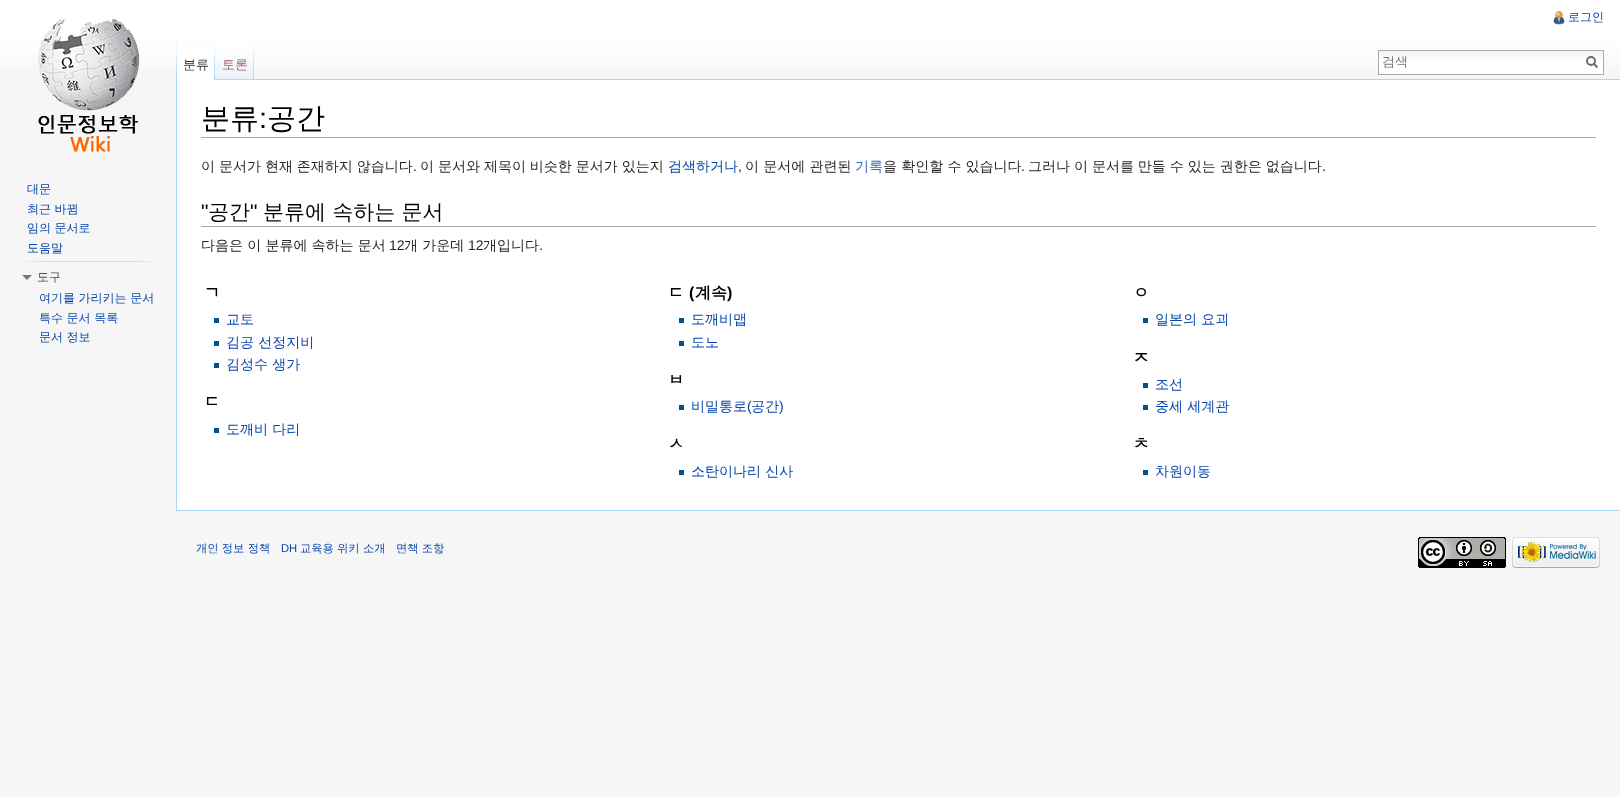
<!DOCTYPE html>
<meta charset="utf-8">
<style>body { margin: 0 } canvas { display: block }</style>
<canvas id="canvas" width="1620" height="797"></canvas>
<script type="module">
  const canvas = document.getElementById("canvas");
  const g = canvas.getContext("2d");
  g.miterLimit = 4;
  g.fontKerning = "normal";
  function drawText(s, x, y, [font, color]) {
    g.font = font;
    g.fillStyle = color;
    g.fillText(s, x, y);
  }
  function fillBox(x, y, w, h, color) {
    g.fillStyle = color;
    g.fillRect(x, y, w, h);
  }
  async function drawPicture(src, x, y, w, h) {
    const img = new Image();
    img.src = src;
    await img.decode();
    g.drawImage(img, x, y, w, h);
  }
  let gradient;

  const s1 = ["500 12px WenQuanYi Zen Hei", "#0645AD"];
  const s2 = ["500 13px WenQuanYi Zen Hei", "#333333"];
  const s3 = ["500 13px WenQuanYi Zen Hei", "#A55858"];
  const s4 = ["500 13px WenQuanYi Zen Hei", "#757575"];
  const s5 = ["500 12px WenQuanYi Zen Hei", "#4D4D4D"];
  const s6 = ["500 29px WenQuanYi Zen Hei", "#000000"];
  const s7 = ["29px Liberation Sans", "#000000"];
  const s8 = ["500 14px WenQuanYi Zen Hei", "#252525"];
  const s9 = ["14px Liberation Sans", "#252525"];
  const s10 = ["500 14px WenQuanYi Zen Hei", "#0645AD"];
  const s11 = ["500 14px WenQuanYi Zen Hei", "#3366BB"];
  const s12 = ["21px Liberation Sans", "#000000"];
  const s13 = ["500 21px WenQuanYi Zen Hei", "#000000"];
  const s14 = ["bold 16px WenQuanYi Zen Hei", "#000000"];
  const s15 = ["bold 16px Liberation Sans", "#000000"];
  const s16 = ["14px Liberation Sans", "#0645AD"];
  const s17 = ["500 11.25px WenQuanYi Zen Hei", "#0645AD"];
  const s18 = ["11.25px Liberation Sans", "#0645AD"];

  fillBox(0, 0, 1620, 797, "#F6F6F6");
  gradient = g.createLinearGradient(810, 0, 810, 80);
  gradient.addColorStop(0.5, "#FFFFFF");
  gradient.addColorStop(1, "#F6F6F6");
  g.fillStyle = gradient;
  g.fillRect(0, 0, 1620, 69);
  await drawPicture("pic1.png", 1553, 11, 12, 14);
  drawText("로그인", 1568, 21, s1);
  await drawPicture("pic2.png", 176, 40, 1, 39);
  fillBox(177, 51, 37, 29, "#FFFFFF");
  await drawPicture("pic3.png", 214, 40, 1, 40);
  drawText("분류", 183, 69, s2);
  await drawPicture("pic4.png", 215, 40, 39, 40);
  await drawPicture("pic5.png", 253, 40, 1, 39);
  drawText("토론", 222, 69, s3);
  fillBox(1379, 59, 224, 15, "#FFFFFF");
  await drawPicture("pic6.png", 1379, 51, 224, 8);
  g.strokeStyle = "#AAAAAA";
  g.strokeRect(1378.5, 50.5, 225, 24);
  drawText("검색", 1382, 66, s4);
  g.beginPath();
  g.moveTo(1597.5, 67.5);
  g.lineTo(1593.5, 63.5);
  g.strokeStyle = "#6C6C6C";
  g.lineWidth = 2;
  g.stroke();
  g.beginPath();
  g.arc(1591, 61, 4, 0, Math.PI * 2);
  g.stroke();
  await drawPicture("pic7.png", 38, 18, 102, 134);
  drawText("대문", 27, 193, s1);
  drawText("최근 바뀜", 27, 213, s1);
  drawText("임의 문서로", 27, 232, s1);
  drawText("도움말", 27, 252, s1);
  await drawPicture("pic8.png", 22, 261, 135, 1);
  g.fillStyle = "#797979";
  g.beginPath();
  g.moveTo(32, 275);
  g.lineTo(27, 280);
  g.lineTo(22, 275);
  g.closePath();
  g.fill();
  drawText("도구", 37, 281, s5);
  drawText("여기를 가리키는 문서", 39, 302, s1);
  drawText("특수 문서 목록", 39, 322, s1);
  drawText("문서 정보", 39, 341, s1);
  fillBox(177, 80, 1443, 430, "#FFFFFF");
  fillBox(254, 79, 1366, 1, "#A7D7F9");
  fillBox(176, 510, 1444, 1, "#A7D7F9");
  fillBox(176, 79, 1, 432, "#A7D7F9");
  fillBox(201, 137, 1395, 1, "#AAAAAA");
  drawText("분류", 201, 128, s6);
  drawText(":", 259, 128, s7);
  drawText("공간", 267, 128, s6);
  g.wordSpacing = "-0.25px";
  drawText("이 문서가 현재 존재하지 않습니다", 201, 171, s8);
  g.wordSpacing = "0px";
  drawText(".", 413, 171, s9);
  g.wordSpacing = "-0.25px";
  drawText("이 문서와 제목이 비슷한 문서가 있는지", 420, 171, s8);
  g.wordSpacing = "0px";
  drawText("검색하거나", 668, 171, s10);
  drawText(",", 738, 171, s9);
  drawText("이 문서에 관련된", 745, 171, s8);
  drawText("기록", 855, 171, s11);
  drawText("을 확인할 수 있습니다", 883, 171, s8);
  drawText(".", 1021, 171, s9);
  g.wordSpacing = "-0.25px";
  drawText("그러나 이 문서를 만들 수 있는 권한은 없습니다", 1028, 171, s8);
  g.wordSpacing = "0px";
  drawText(".", 1322, 171, s9);
  fillBox(201, 226, 1395, 1, "#AAAAAA");
  drawText("\"", 201, 219, s12);
  drawText("공간", 208, 219, s13);
  drawText("\"", 250, 219, s12);
  drawText("분류에 속하는 문서", 263, 219, s13);
  drawText("다음은 이 분류에 속하는 문서", 201, 250, s8);
  drawText("12", 389, 250, s9);
  drawText("개 가운데", 404, 250, s8);
  drawText("12", 468, 250, s9);
  drawText("개입니다", 483, 250, s8);
  drawText(".", 539, 250, s9);
  drawText("ㄱ", 204, 298, s14);
  fillBox(214, 318, 5, 5, "#00528C");
  drawText("교토", 226, 324, s10);
  fillBox(214, 341, 5, 5, "#00528C");
  drawText("김공 선정지비", 226, 347, s10);
  fillBox(214, 363, 5, 5, "#00528C");
  drawText("김성수 생가", 226, 369, s10);
  drawText("ㄷ", 204, 407, s14);
  fillBox(214, 428, 5, 5, "#00528C");
  drawText("도깨비 다리", 226, 434, s10);
  drawText("ㄷ", 668, 298, s14);
  drawText("(", 689, 298, s15);
  drawText("계속", 695, 298, s14);
  drawText(")", 727, 298, s15);
  fillBox(679, 318, 5, 5, "#00528C");
  drawText("도깨비맵", 691, 324, s10);
  fillBox(679, 341, 5, 5, "#00528C");
  drawText("도노", 691, 347, s10);
  drawText("ㅂ", 668, 385, s14);
  fillBox(679, 405, 5, 5, "#00528C");
  drawText("비밀통로", 691, 411, s10);
  drawText("(", 747, 411, s16);
  drawText("공간", 751, 411, s10);
  drawText(")", 779, 411, s16);
  drawText("ㅅ", 668, 449, s14);
  fillBox(679, 470, 5, 5, "#00528C");
  drawText("소탄이나리 신사", 691, 476, s10);
  drawText("ㅇ", 1133, 298, s14);
  fillBox(1143, 318, 5, 5, "#00528C");
  drawText("일본의 요괴", 1155, 324, s10);
  drawText("ㅈ", 1133, 363, s14);
  fillBox(1143, 383, 5, 5, "#00528C");
  drawText("조선", 1155, 389, s10);
  fillBox(1143, 405, 5, 5, "#00528C");
  drawText("중세 세계관", 1155, 411, s10);
  drawText("ㅊ", 1133, 449, s14);
  fillBox(1143, 470, 5, 5, "#00528C");
  drawText("차원이동", 1155, 476, s10);
  drawText("개인 정보 정책", 196, 552, s17);
  drawText("DH", 281, 552, s18);
  drawText("교육용 위키 소개", 300, 552, s17);
  drawText("면책 조항", 396, 552, s17);
  await drawPicture("pic9.png", 1418, 537, 88, 31);
  await drawPicture("pic10.png", 1512, 537, 88, 31);
</script>
